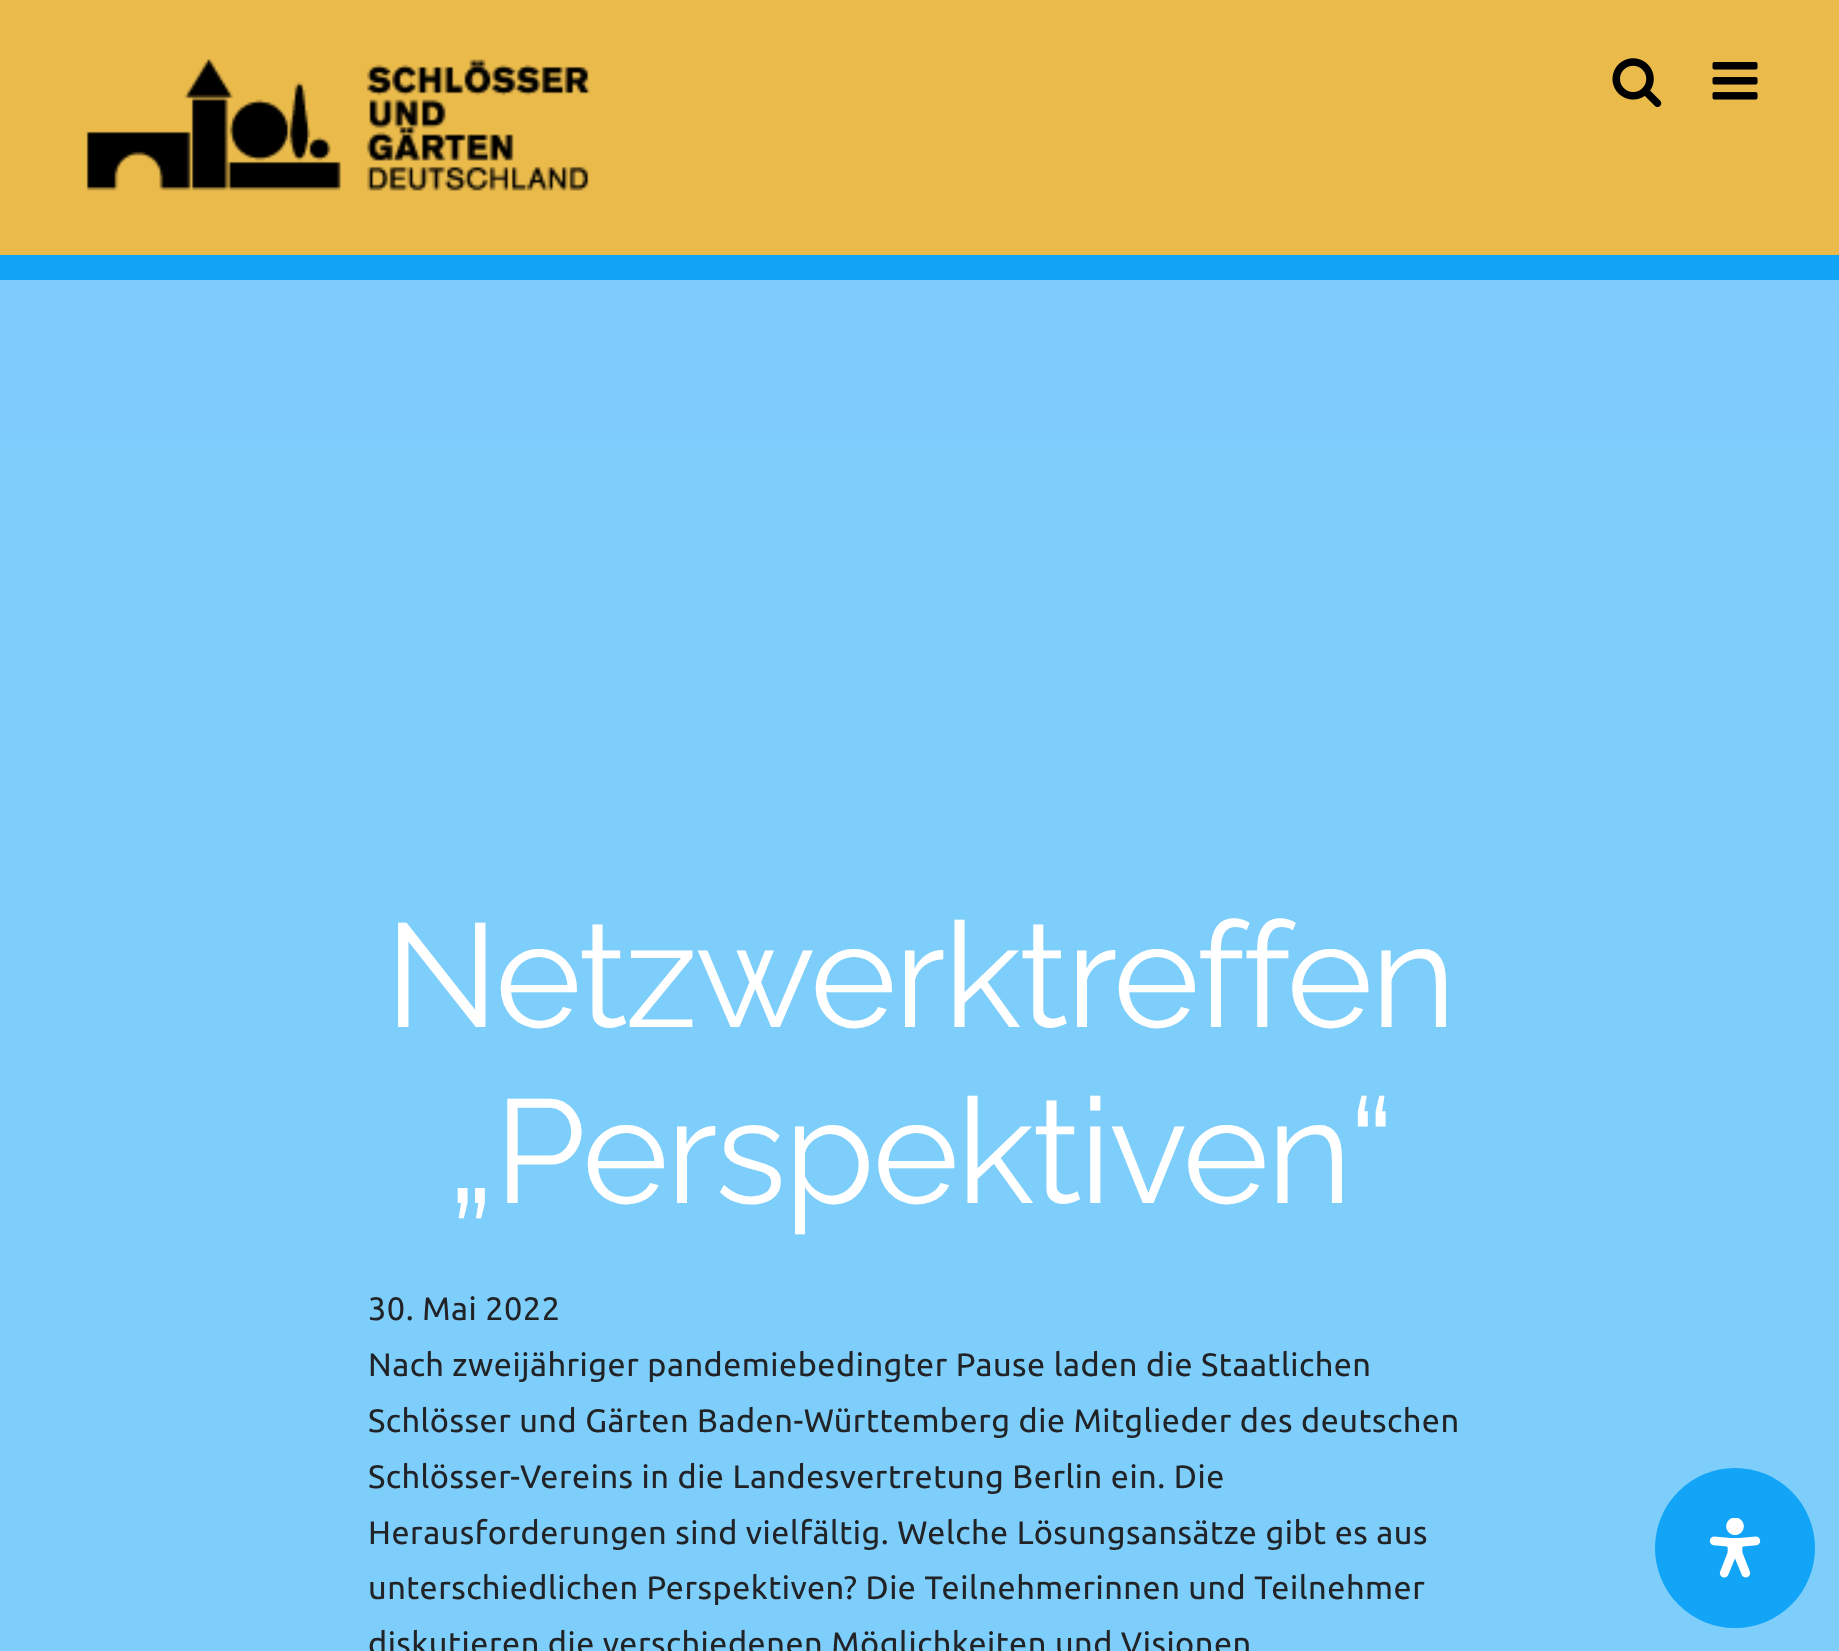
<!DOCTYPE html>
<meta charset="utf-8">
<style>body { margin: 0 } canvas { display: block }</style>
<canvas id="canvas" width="1839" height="1651"></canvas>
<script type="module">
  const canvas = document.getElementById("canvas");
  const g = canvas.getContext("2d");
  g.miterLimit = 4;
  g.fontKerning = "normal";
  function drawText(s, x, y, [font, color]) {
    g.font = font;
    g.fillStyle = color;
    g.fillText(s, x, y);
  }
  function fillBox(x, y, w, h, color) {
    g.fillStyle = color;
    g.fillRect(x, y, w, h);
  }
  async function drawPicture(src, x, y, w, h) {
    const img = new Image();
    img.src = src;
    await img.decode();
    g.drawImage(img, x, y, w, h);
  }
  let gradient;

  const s1 = ["147px Raleway", "#FFFFFF"];
  const s2 = ["32.5px Ubuntu", "#212326"];

  fillBox(0, 0, 1839, 1651, "#7DCEFB");
  fillBox(0, 0, 1839, 255, "#EABA4B");
  await drawPicture("pic1.png", 86, 59, 505, 132);
  await drawPicture("pic2.png", 1612, 58, 50, 49);
  await drawPicture("pic3.png", 1712, 62, 46, 38);
  fillBox(0, 255, 1839, 25, "#11A4F7");
  gradient = g.createLinearGradient(920, 280, 920, 1280);
  gradient.addColorStop(0, "#7FCBFE");
  gradient.addColorStop(1, "#7DCEFB");
  g.fillStyle = gradient;
  g.fillRect(0, 280, 1839, 167);
  g.letterSpacing = "-2.25px";
  drawText("Netzwerktreffen", 385, 1027, s1);
  drawText("„Perspektiven“", 446, 1203, s1);
  g.letterSpacing = "0.5px";
  drawText("30. Mai 2022", 368, 1320, s2);
  drawText("Nach zweijähriger pandemiebedingter Pause laden die Staatlichen", 368, 1376, s2);
  drawText("Schlösser und Gärten Baden-Württemberg die Mitglieder des deutschen", 368, 1432, s2);
  drawText("Schlösser-Vereins in die Landesvertretung Berlin ein. Die", 368, 1488, s2);
  drawText("Herausforderungen sind vielfältig. Welche Lösungsansätze gibt es aus", 368, 1544, s2);
  drawText("unterschiedlichen Perspektiven? Die Teilnehmerinnen und Teilnehmer", 368, 1599, s2);
  drawText("diskutieren die verschiedenen Möglichkeiten und Visionen", 368, 1655, s2);
  g.fillStyle = "#11A4F7";
  g.beginPath();
  g.arc(1735, 1548, 80, 0, Math.PI * 2);
  g.fill();
  await drawPicture("pic4.png", 1709, 1518, 52, 60);
</script>
